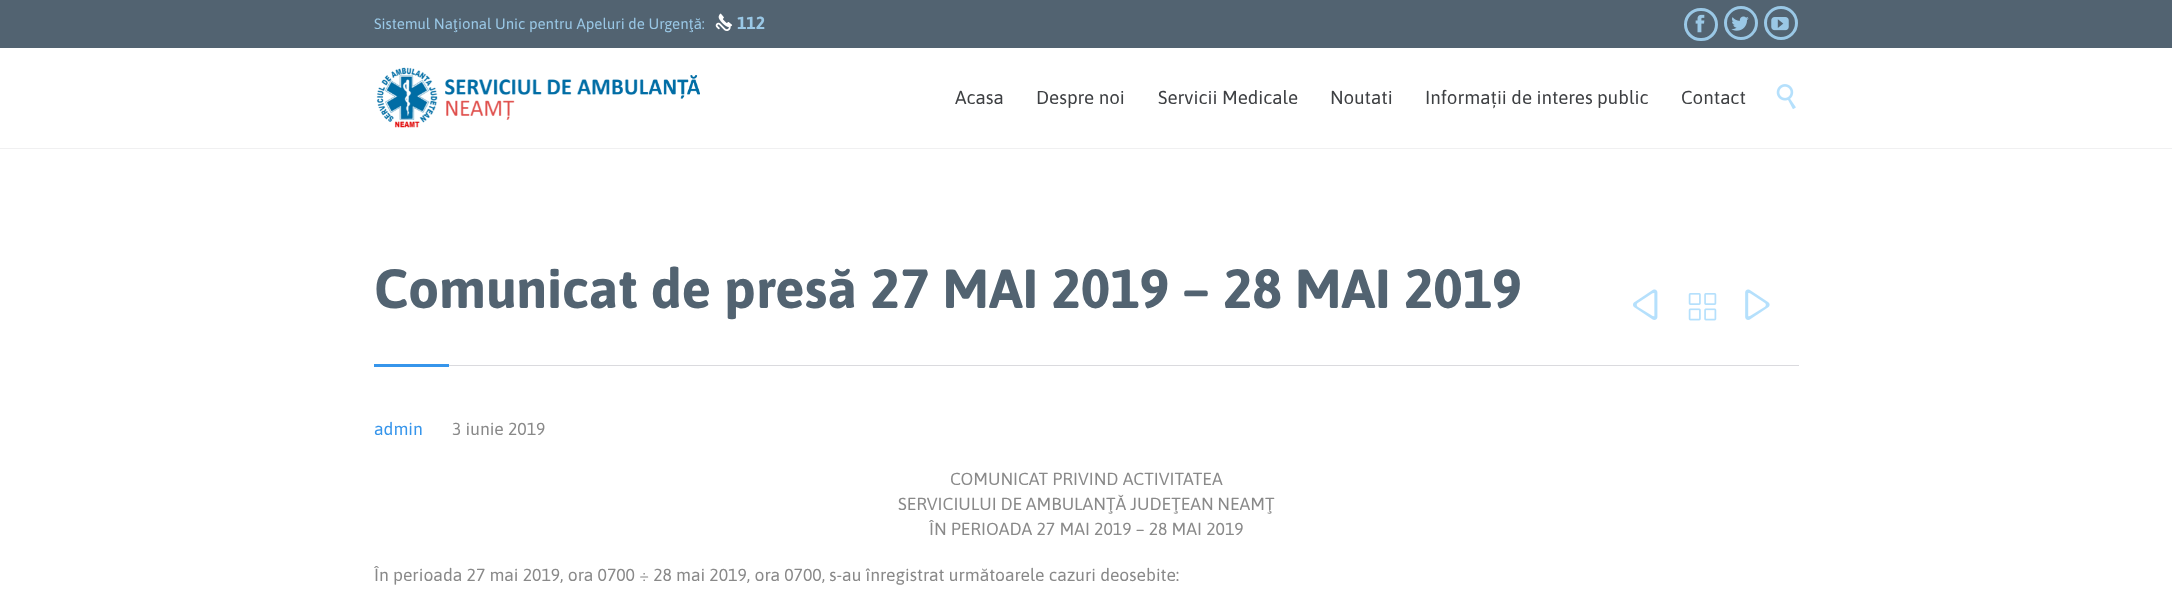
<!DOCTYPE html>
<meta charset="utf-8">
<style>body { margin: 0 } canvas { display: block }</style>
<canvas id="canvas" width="2172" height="599"></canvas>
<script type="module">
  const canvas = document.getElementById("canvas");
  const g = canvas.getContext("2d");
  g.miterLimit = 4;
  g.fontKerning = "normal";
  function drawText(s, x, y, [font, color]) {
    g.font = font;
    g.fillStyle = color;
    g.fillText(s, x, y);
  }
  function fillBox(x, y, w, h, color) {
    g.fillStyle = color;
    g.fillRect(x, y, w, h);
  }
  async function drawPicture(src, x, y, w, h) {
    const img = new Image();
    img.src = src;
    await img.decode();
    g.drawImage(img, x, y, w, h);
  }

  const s1 = ["15px Asap", "#9AC8E6"];
  const s2 = ["bold 17.5px Asap", "#9AC8E6"];
  const s3 = ["18.75px Asap", "#3E4043"];
  const s4 = ["bold 55px Asap", "#526371"];
  const s5 = ["17.5px Asap", "#3695EB"];
  const s6 = ["17.5px Asap", "#898989"];

  fillBox(0, 0, 2172, 599, "#FFFFFF");
  fillBox(0, 148, 2172, 1, "#F0F0F1");
  fillBox(0, 0, 2172, 48, "#526371");
  drawText("Sistemul Naţional Unic pentru Apeluri de Urgenţă:", 374, 29, s1);
  await drawPicture("pic1.png", 715, 13, 18, 18);
  drawText("112", 737, 29, s2);
  g.beginPath();
  g.roundRect(1685.5, 9.5, 31, 30, 15);
  g.strokeStyle = "#9AC8E6";
  g.lineWidth = 3;
  g.stroke();
  await drawPicture("pic2.png", 1695, 14, 10, 19);
  g.beginPath();
  g.arc(1741, 23, 15.5, 0, Math.PI * 2);
  g.stroke();
  await drawPicture("pic3.png", 1731, 16, 18, 15);
  g.beginPath();
  g.arc(1781, 23, 15.5, 0, Math.PI * 2);
  g.stroke();
  await drawPicture("pic4.png", 1771, 17, 18, 14);
  await drawPicture("pic5.png", 376, 67, 324, 61);
  drawText("Acasa", 955, 104, s3);
  drawText("Despre noi", 1036, 104, s3);
  drawText("Servicii Medicale", 1158, 104, s3);
  drawText("Noutati", 1330, 104, s3);
  drawText("Informații de interes public", 1425, 104, s3);
  drawText("Contact", 1681, 104, s3);
  await drawPicture("pic6.png", 1776, 84, 20, 25);
  fillBox(449, 365, 1350, 1, "#DADADE");
  drawText("Comunicat de presă 27 MAI 2019 – 28 MAI 2019", 374, 308, s4);
  await drawPicture("pic7.png", 1633, 289, 25, 31);
  await drawPicture("pic8.png", 1688, 293, 29, 28);
  await drawPicture("pic9.png", 1745, 289, 25, 31);
  fillBox(374, 364, 75, 3, "#3695EB");
  drawText("admin", 374, 435, s5);
  drawText("3 iunie 2019", 452, 435, s6);
  drawText("COMUNICAT PRIVIND ACTIVITATEA", 950, 485, s6);
  g.wordSpacing = "-0.5px";
  drawText("SERVICIULUI DE AMBULANŢĂ JUDEŢEAN NEAMŢ", 898, 510, s6);
  g.wordSpacing = "0px";
  drawText("ÎN PERIOADA 27 MAI 2019 – 28 MAI 2019", 929, 535, s6);
  drawText("În perioada 27 mai 2019, ora 0700 ÷ 28 mai 2019, ora 0700, s-au înregistrat următoarele cazuri deosebite:", 374, 581, s6);
</script>
